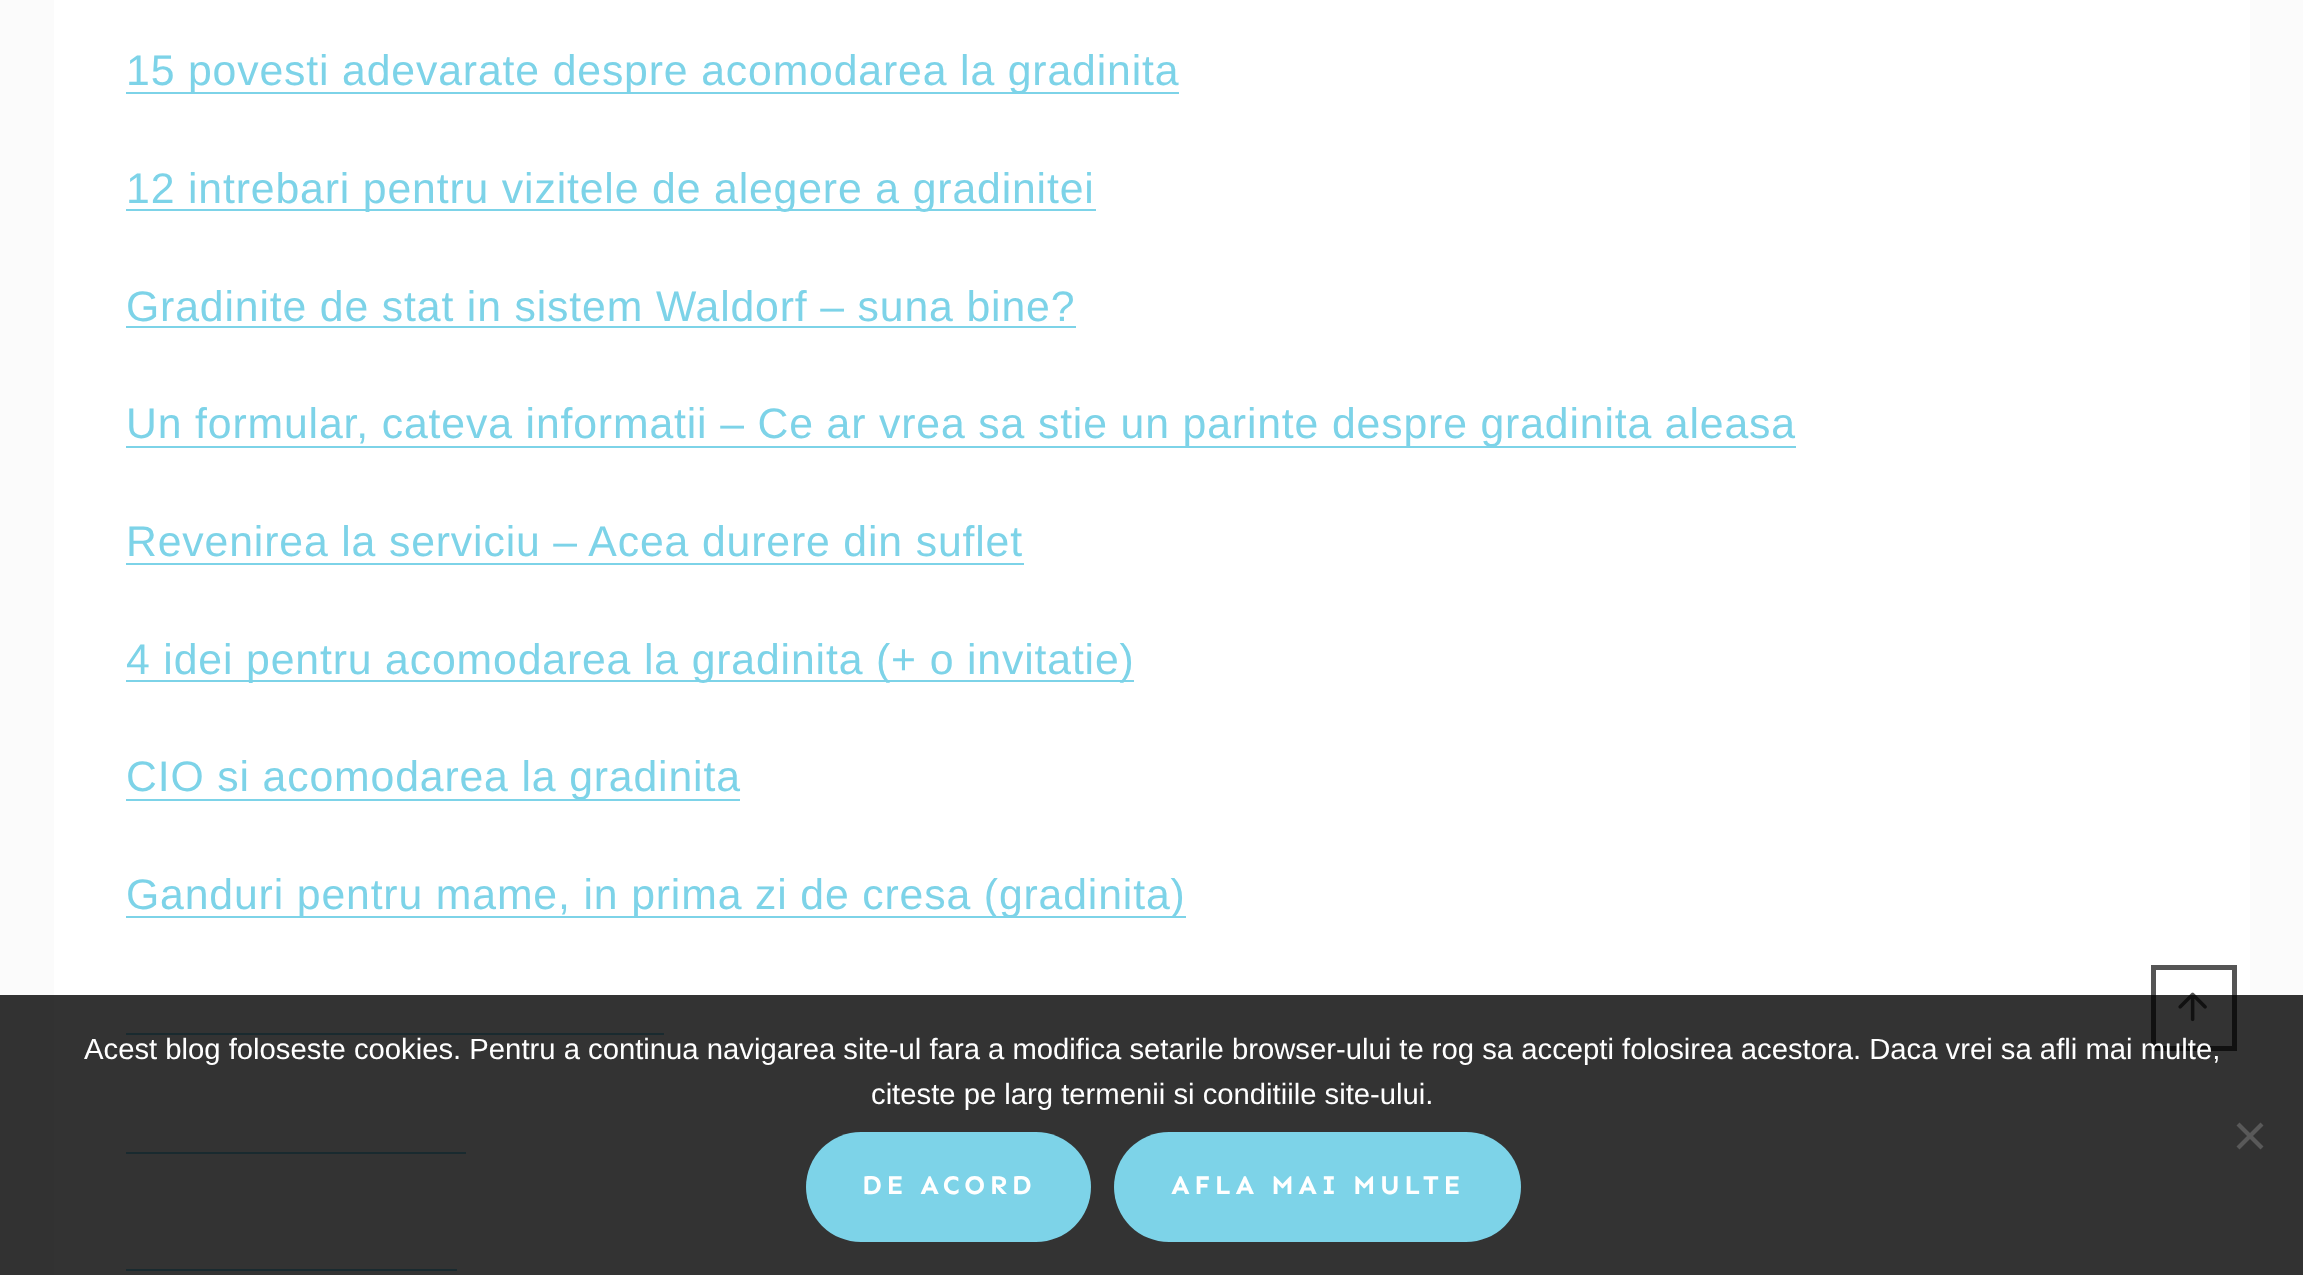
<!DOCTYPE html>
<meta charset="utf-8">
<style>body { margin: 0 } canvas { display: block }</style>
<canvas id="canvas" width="2303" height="1275"></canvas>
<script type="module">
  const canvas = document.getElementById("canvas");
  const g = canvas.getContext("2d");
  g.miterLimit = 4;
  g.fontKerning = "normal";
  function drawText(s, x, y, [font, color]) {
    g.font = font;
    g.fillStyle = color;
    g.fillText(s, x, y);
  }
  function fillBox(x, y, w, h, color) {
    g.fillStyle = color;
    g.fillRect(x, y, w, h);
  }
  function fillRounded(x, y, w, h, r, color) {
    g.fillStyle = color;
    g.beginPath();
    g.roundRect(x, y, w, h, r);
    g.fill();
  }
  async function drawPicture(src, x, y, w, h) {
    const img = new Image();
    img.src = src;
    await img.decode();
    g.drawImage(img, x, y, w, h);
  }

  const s1 = ["42.75px Liberation Sans", "#7DD3E8"];
  const s2 = ["29.25px Liberation Sans", "#FFFFFF"];
  const s3 = ["bold 27px Sen", "#FFFFFF"];

  fillBox(0, 0, 2303, 1275, "#FBFBFB");
  fillBox(54, 0, 2196, 1275, "#FFFFFF");
  fillBox(126, 92, 1053, 2, "#7DD3E8");
  g.letterSpacing = "0.85px";
  drawText("15 povesti adevarate despre acomodarea la gradinita", 126, 85, s1);
  fillBox(126, 209, 970, 2, "#7DD3E8");
  drawText("12 intrebari pentru vizitele de alegere a gradinitei", 126, 203, s1);
  drawText("Gradinite de stat in sistem Waldorf – suna bine?", 126, 321, s1);
  fillBox(126, 326, 950, 2, "#7DD3E8");
  fillBox(126, 446, 1670, 2, "#7DD3E8");
  drawText("Un formular, cateva informatii – Ce ar vrea sa stie un parinte despre gradinita aleasa", 126, 438, s1);
  drawText("Revenirea la serviciu – Acea durere din suflet", 126, 556, s1);
  fillBox(126, 563, 898, 2, "#7DD3E8");
  fillBox(126, 680, 1008, 2, "#7DD3E8");
  drawText("4 idei pentru acomodarea la gradinita (+ o invitatie)", 126, 674, s1);
  fillBox(126, 799, 614, 2, "#7DD3E8");
  drawText("CIO si acomodarea la gradinita", 126, 791, s1);
  fillBox(126, 916, 1060, 2, "#7DD3E8");
  drawText("Ganduri pentru mame, in prima zi de cresa (gradinita)", 126, 909, s1);
  fillBox(126, 1033, 538, 2, "#7DD3E8");
  fillBox(126, 1152, 340, 2, "#7DD3E8");
  fillBox(126, 1269, 331, 2, "#7DD3E8");
  g.strokeStyle = "#555555";
  g.lineWidth = 5;
  g.strokeRect(2153.5, 967.5, 81, 81);
  await drawPicture("pic1.png", 2178, 992, 29, 30);
  fillBox(0, 995, 2303, 280, "rgba(0, 0, 0, 0.8)");
  g.letterSpacing = "0px";
  drawText("Acest blog foloseste cookies. Pentru a continua navigarea site-ul fara a modifica setarile browser-ului te rog sa accepti folosirea acestora. Daca vrei sa afli mai multe,", 84, 1059, s2);
  drawText("citeste pe larg termenii si conditiile site-ului.", 871, 1104, s2);
  g.fillStyle = "#595959";
  g.beginPath();
  g.moveTo(2260.5, 1122.5);
  g.lineTo(2263.5, 1125.5);
  g.lineTo(2239.5, 1149.5);
  g.lineTo(2236.5, 1146.5);
  g.closePath();
  g.fill();
  g.beginPath();
  g.moveTo(2236.5, 1125.5);
  g.lineTo(2239.5, 1122.5);
  g.lineTo(2263.5, 1146.5);
  g.lineTo(2260.5, 1149.5);
  g.closePath();
  g.fill();
  fillRounded(806, 1132, 285, 110, 55, "#7DD3E8");
  g.letterSpacing = "4.5px";
  drawText("DE ACORD", 862, 1194, s3);
  fillRounded(1114, 1132, 407, 110, 55, "#7DD3E8");
  drawText("AFLA MAI MULTE", 1171, 1194, s3);
</script>
